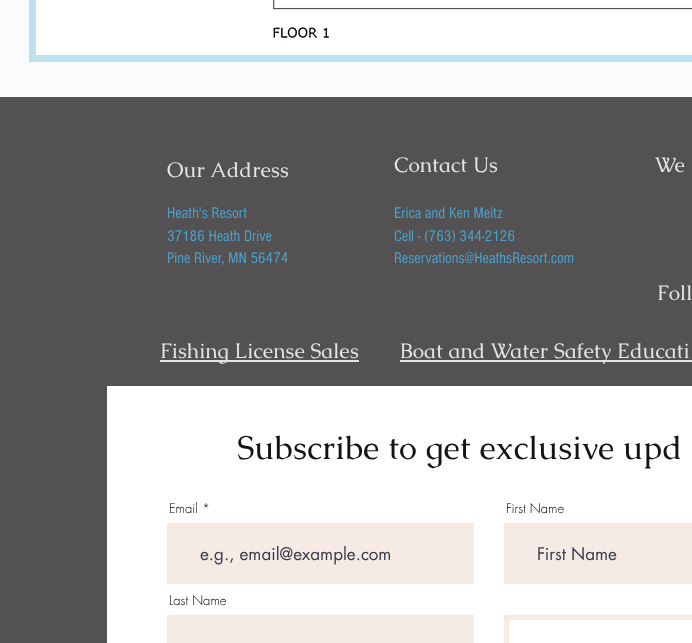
<!DOCTYPE html>
<meta charset="utf-8">
<style>body { margin: 0 } canvas { display: block }</style>
<canvas id="canvas" width="692" height="643"></canvas>
<script type="module">
  const canvas = document.getElementById("canvas");
  const g = canvas.getContext("2d");
  g.miterLimit = 4;
  g.fontKerning = "normal";
  function drawText(s, x, y, [font, color]) {
    g.font = font;
    g.fillStyle = color;
    g.fillText(s, x, y);
  }
  function fillBox(x, y, w, h, color) {
    g.fillStyle = color;
    g.fillRect(x, y, w, h);
  }
  async function drawPicture(src, x, y, w, h) {
    const img = new Image();
    img.src = src;
    await img.decode();
    g.drawImage(img, x, y, w, h);
  }

  const s1 = ["21px Caudex", "#E4E4E4"];
  const s2 = ["16px 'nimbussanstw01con'", "#4BA0CC"];
  const s3 = ["33px Caudex", "#141414"];
  const s4 = ["300 13px futura", "#000000"];
  const s5 = ["17px futura", "#373B4D"];

  fillBox(0, 0, 692, 643, "#FBFBFB");
  fillBox(29, 0, 663, 62, "#BCE1EE");
  await drawPicture("pic1.png", 36, 0, 656, 55);
  fillBox(0, 97, 692, 546, "#535151");
  drawText("Our Address", 167, 177, s1);
  drawText("Contact Us", 394, 172, s1);
  drawText("We", 655, 172, s1);
  drawText("Heath's Resort", 167, 218, s2);
  drawText("37186 Heath Drive", 167, 241, s2);
  drawText("Pine River, MN 56474", 167, 263, s2);
  drawText("Erica and Ken Meitz", 394, 218, s2);
  drawText("Cell - (763) 344-2126", 394, 241, s2);
  drawText("Reservations@HeathsResort.com", 394, 263, s2);
  drawText("Foll", 657, 300, s1);
  fillBox(160, 360, 199, 2, "#E4E4E4");
  drawText("Fishing License Sales", 160, 358, s1);
  fillBox(400, 360, 292, 2, "#E4E4E4");
  drawText("Boat and Water Safety Educati", 400, 358, s1);
  fillBox(107, 386, 585, 257, "#FFFFFF");
  drawText("Subscribe to get exclusive upd", 237, 459, s3);
  drawText("Email *", 169, 513, s4);
  fillBox(167, 523, 307, 61, "#F6EBE4");
  drawText("e.g., email@example.com", 200, 560, s5);
  drawText("First Name", 506, 513, s4);
  fillBox(504, 523, 188, 61, "#F6EBE4");
  drawText("First Name", 537, 560, s5);
  drawText("Last Name", 169, 605, s4);
  fillBox(167, 615, 307, 28, "#F6EBE4");
  g.strokeStyle = "#F6EBE4";
  g.lineWidth = 5;
  g.strokeRect(506.5, 617.5, 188, 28);
</script>
